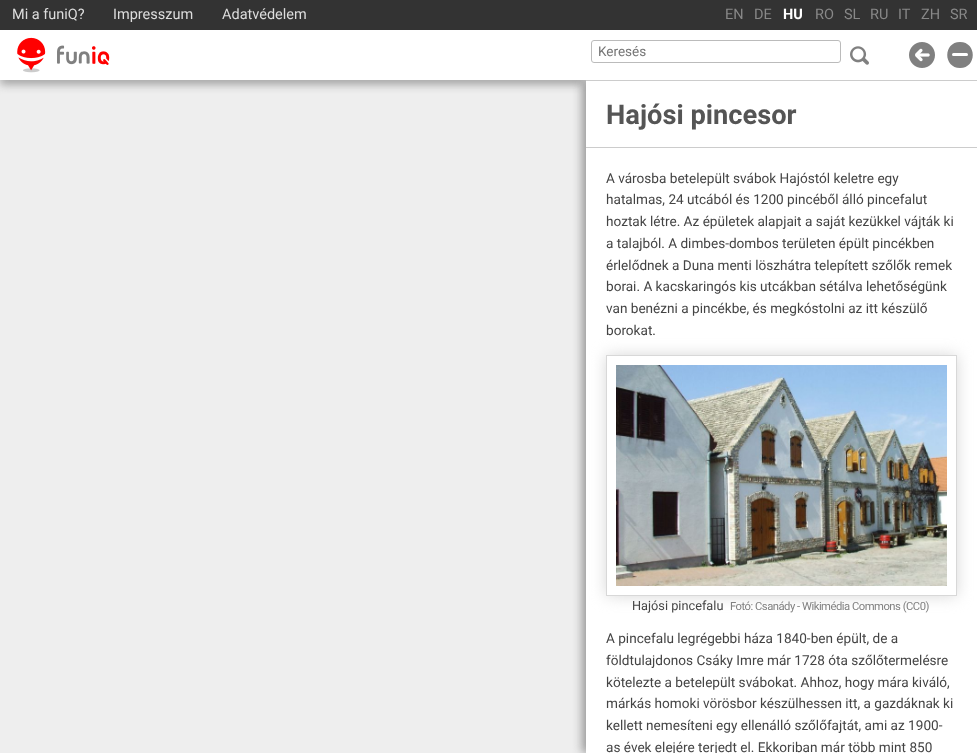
<!DOCTYPE html>
<meta charset="utf-8">
<style>body { margin: 0 } canvas { display: block }</style>
<canvas id="canvas" width="977" height="753"></canvas>
<script type="module">
  const canvas = document.getElementById("canvas");
  const g = canvas.getContext("2d");
  g.miterLimit = 4;
  g.fontKerning = "normal";
  function drawText(s, x, y, [font, color]) {
    g.font = font;
    g.fillStyle = color;
    g.fillText(s, x, y);
  }
  function fillBox(x, y, w, h, color) {
    g.fillStyle = color;
    g.fillRect(x, y, w, h);
  }
  function fillRounded(x, y, w, h, r, color) {
    g.fillStyle = color;
    g.beginPath();
    g.roundRect(x, y, w, h, r);
    g.fill();
  }
  async function drawPicture(src, x, y, w, h) {
    const img = new Image();
    img.src = src;
    await img.decode();
    g.drawImage(img, x, y, w, h);
  }

  const s1 = ["14.5px Roboto", "#DDDDDD"];
  const s2 = ["14.5px Roboto", "#888888"];
  const s3 = ["bold 14.5px Roboto", "#FFFFFF"];
  const s4 = ["13.5px Roboto", "#757575"];
  const s5 = ["bold 27.25px Roboto", "#555555"];
  const s6 = ["13.6px Roboto", "#444444"];
  const s7 = ["12.75px Roboto", "#444444"];
  const s8 = ["11.25px Roboto", "#808080"];

  fillBox(0, 0, 977, 753, "#FFFFFF");
  fillBox(0, 80, 586, 673, "#EEEEEE");
  g.save();
  g.beginPath();
  g.rect(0, 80, 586, 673);
  g.clip();
  g.fillStyle = "#999999";
  g.filter = "blur(5px)";
  g.beginPath();
  g.rect(0, 74, 586, 10);
  g.fill();
  g.filter = "none";
  g.restore();
  g.save();
  g.beginPath();
  g.rect(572, 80, 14, 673);
  g.clip();
  g.fillStyle = "#999999";
  g.filter = "blur(5px)";
  g.beginPath();
  g.rect(582, 80, 391, 673);
  g.fill();
  g.filter = "none";
  g.restore();
  fillBox(574, 70, 403, 10, "#FFFFFF");
  fillBox(0, 0, 977, 30, "#333333");
  drawText("Mi a funiQ?", 12, 19, s1);
  drawText("Impresszum", 113, 19, s1);
  drawText("Adatvédelem", 222, 19, s1);
  drawText("EN", 725, 19, s2);
  drawText("DE", 754, 19, s2);
  drawText("HU", 783, 19, s3);
  drawText("RO", 815, 19, s2);
  drawText("SL", 844, 19, s2);
  drawText("RU", 870, 19, s2);
  drawText("IT", 898, 19, s2);
  drawText("ZH", 921, 19, s2);
  drawText("SR", 950, 19, s2);
  await drawPicture("pic1.png", 17, 37, 93, 36);
  await drawPicture("pic2.png", 850, 46, 19, 19);
  g.beginPath();
  g.roundRect(591.5, 40.5, 249, 22, 2.5);
  g.strokeStyle = "#BBBBBB";
  g.stroke();
  drawText("Keresés", 598, 56, s4);
  await drawPicture("pic3.png", 909, 42, 26, 26);
  g.fillStyle = "#808080";
  g.beginPath();
  g.moveTo(960, 68);
  g.bezierCurveTo(943, 68, 943, 42, 960, 42);
  g.bezierCurveTo(977, 42, 977, 68, 960, 68);
  g.closePath();
  g.fill();
  fillRounded(952, 53, 16, 3, 1.5, "#FFFFFF");
  fillBox(586, 80, 391, 1, "#CCCCCC");
  fillBox(586, 147, 391, 1, "#CCCCCC");
  drawText("Hajósi pincesor", 606, 124, s5);
  drawText("A városba betelepült svábok Hajóstól keletre egy", 606, 183, s6);
  drawText("hatalmas, 24 utcából és 1200 pincéből álló pincefalut", 606, 204, s6);
  drawText("hoztak létre. Az épületek alapjait a saját kezükkel vájták ki", 606, 226, s6);
  drawText("a talajból. A dimbes-dombos területen épült pincékben", 606, 248, s6);
  drawText("érlelődnek a Duna menti löszhátra telepített szőlők remek", 606, 270, s6);
  drawText("borai. A kacskaringós kis utcákban sétálva lehetőségünk", 606, 291, s6);
  drawText("van benézni a pincékbe, és megkóstolni az itt készülő", 606, 313, s6);
  g.save();
  g.beginPath();
  g.moveTo(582, 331);
  g.lineTo(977, 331);
  g.lineTo(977, 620);
  g.lineTo(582, 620);
  g.closePath();
  g.moveTo(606, 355);
  g.lineTo(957, 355);
  g.lineTo(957, 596);
  g.lineTo(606, 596);
  g.closePath();
  g.clip("evenodd");
  g.fillStyle = "#D8D8D8";
  g.filter = "blur(7.5px)";
  g.beginPath();
  g.rect(606, 355, 351, 241);
  g.fill();
  g.filter = "none";
  g.restore();
  drawText("borokat.", 606, 335, s6);
  g.strokeStyle = "#D8D8D8";
  g.strokeRect(606.5, 355.5, 350, 240);
  await drawPicture("pic4.png", 616, 365, 331, 221);
  drawText("Hajósi pincefalu", 632, 610, s7);
  g.letterSpacing = "-0.5px";
  drawText("Fotó: Csanády - Wikimédia Commons (CC0)", 730, 610, s8);
  g.letterSpacing = "0px";
  drawText("A pincefalu legrégebbi háza 1840-ben épült, de a", 606, 643, s6);
  drawText("földtulajdonos Csáky Imre már 1728 óta szőlőtermelésre", 606, 665, s6);
  drawText("kötelezte a betelepült svábokat. Ahhoz, hogy mára kiváló,", 606, 687, s6);
  drawText("márkás homoki vörösbor készülhessen itt, a gazdáknak ki", 606, 708, s6);
  drawText("kellett nemesíteni egy ellenálló szőlőfajtát, ami az 1900-", 606, 730, s6);
  drawText("as évek elejére terjedt el. Ekkoriban már több mint 850", 606, 752, s6);
</script>
